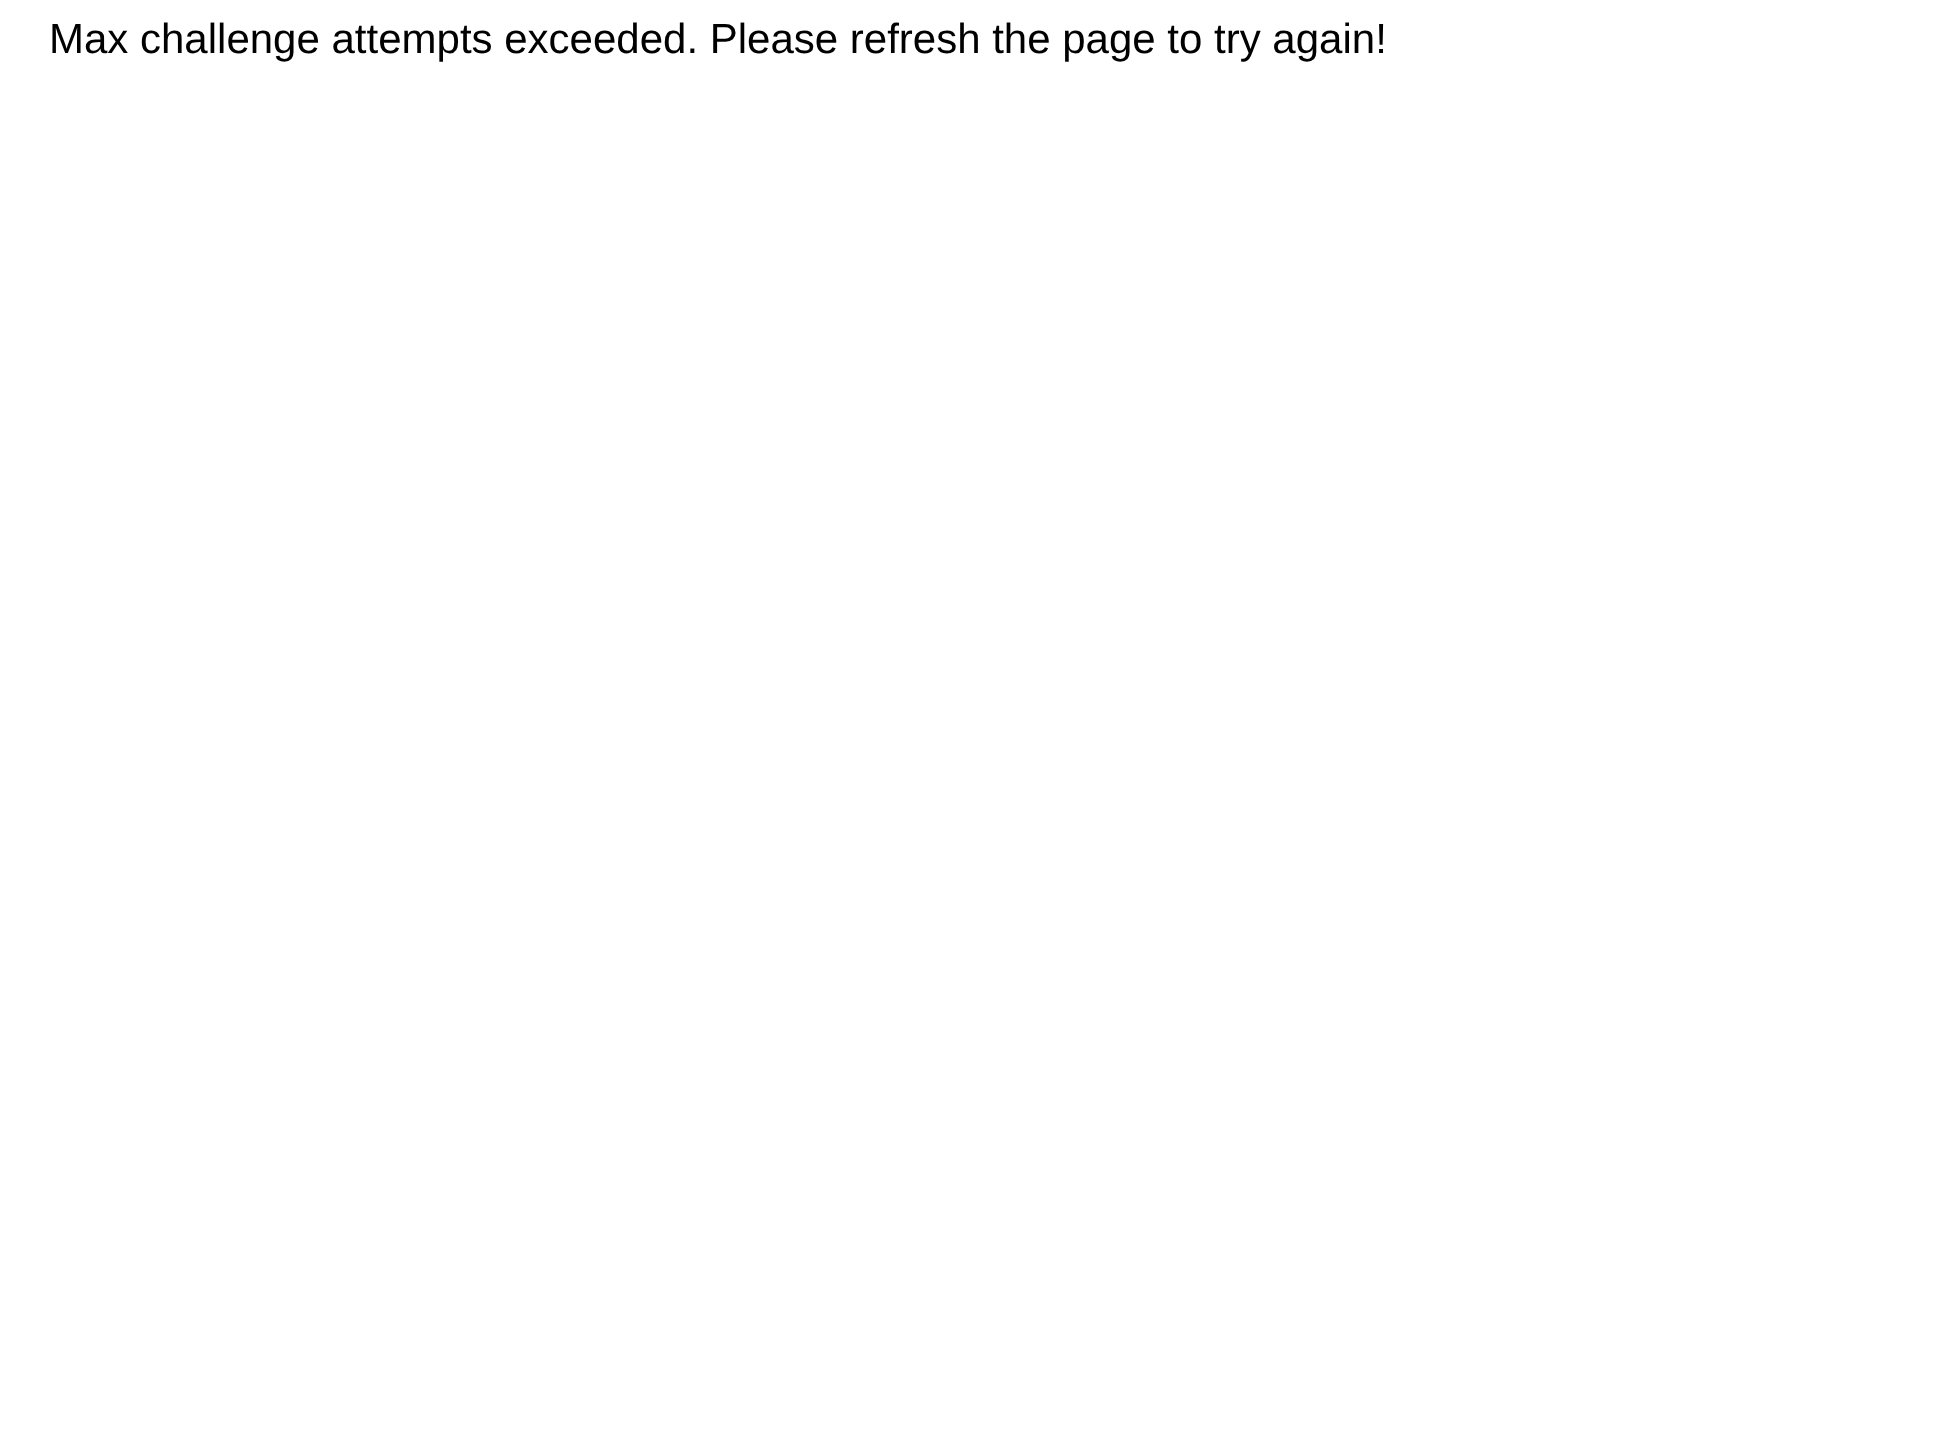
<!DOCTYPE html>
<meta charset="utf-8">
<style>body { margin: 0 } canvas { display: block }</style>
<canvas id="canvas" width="1941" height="1432"></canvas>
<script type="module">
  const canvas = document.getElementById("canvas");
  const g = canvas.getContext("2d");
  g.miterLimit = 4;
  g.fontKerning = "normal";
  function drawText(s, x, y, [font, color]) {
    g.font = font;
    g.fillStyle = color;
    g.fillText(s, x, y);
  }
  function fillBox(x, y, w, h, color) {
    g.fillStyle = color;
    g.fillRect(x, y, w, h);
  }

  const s1 = ["42px Liberation Sans", "#000000"];

  fillBox(0, 0, 1941, 1432, "#FFFFFF");
  drawText("Max challenge attempts exceeded. Please refresh the page to try again!", 49, 53, s1);
</script>
